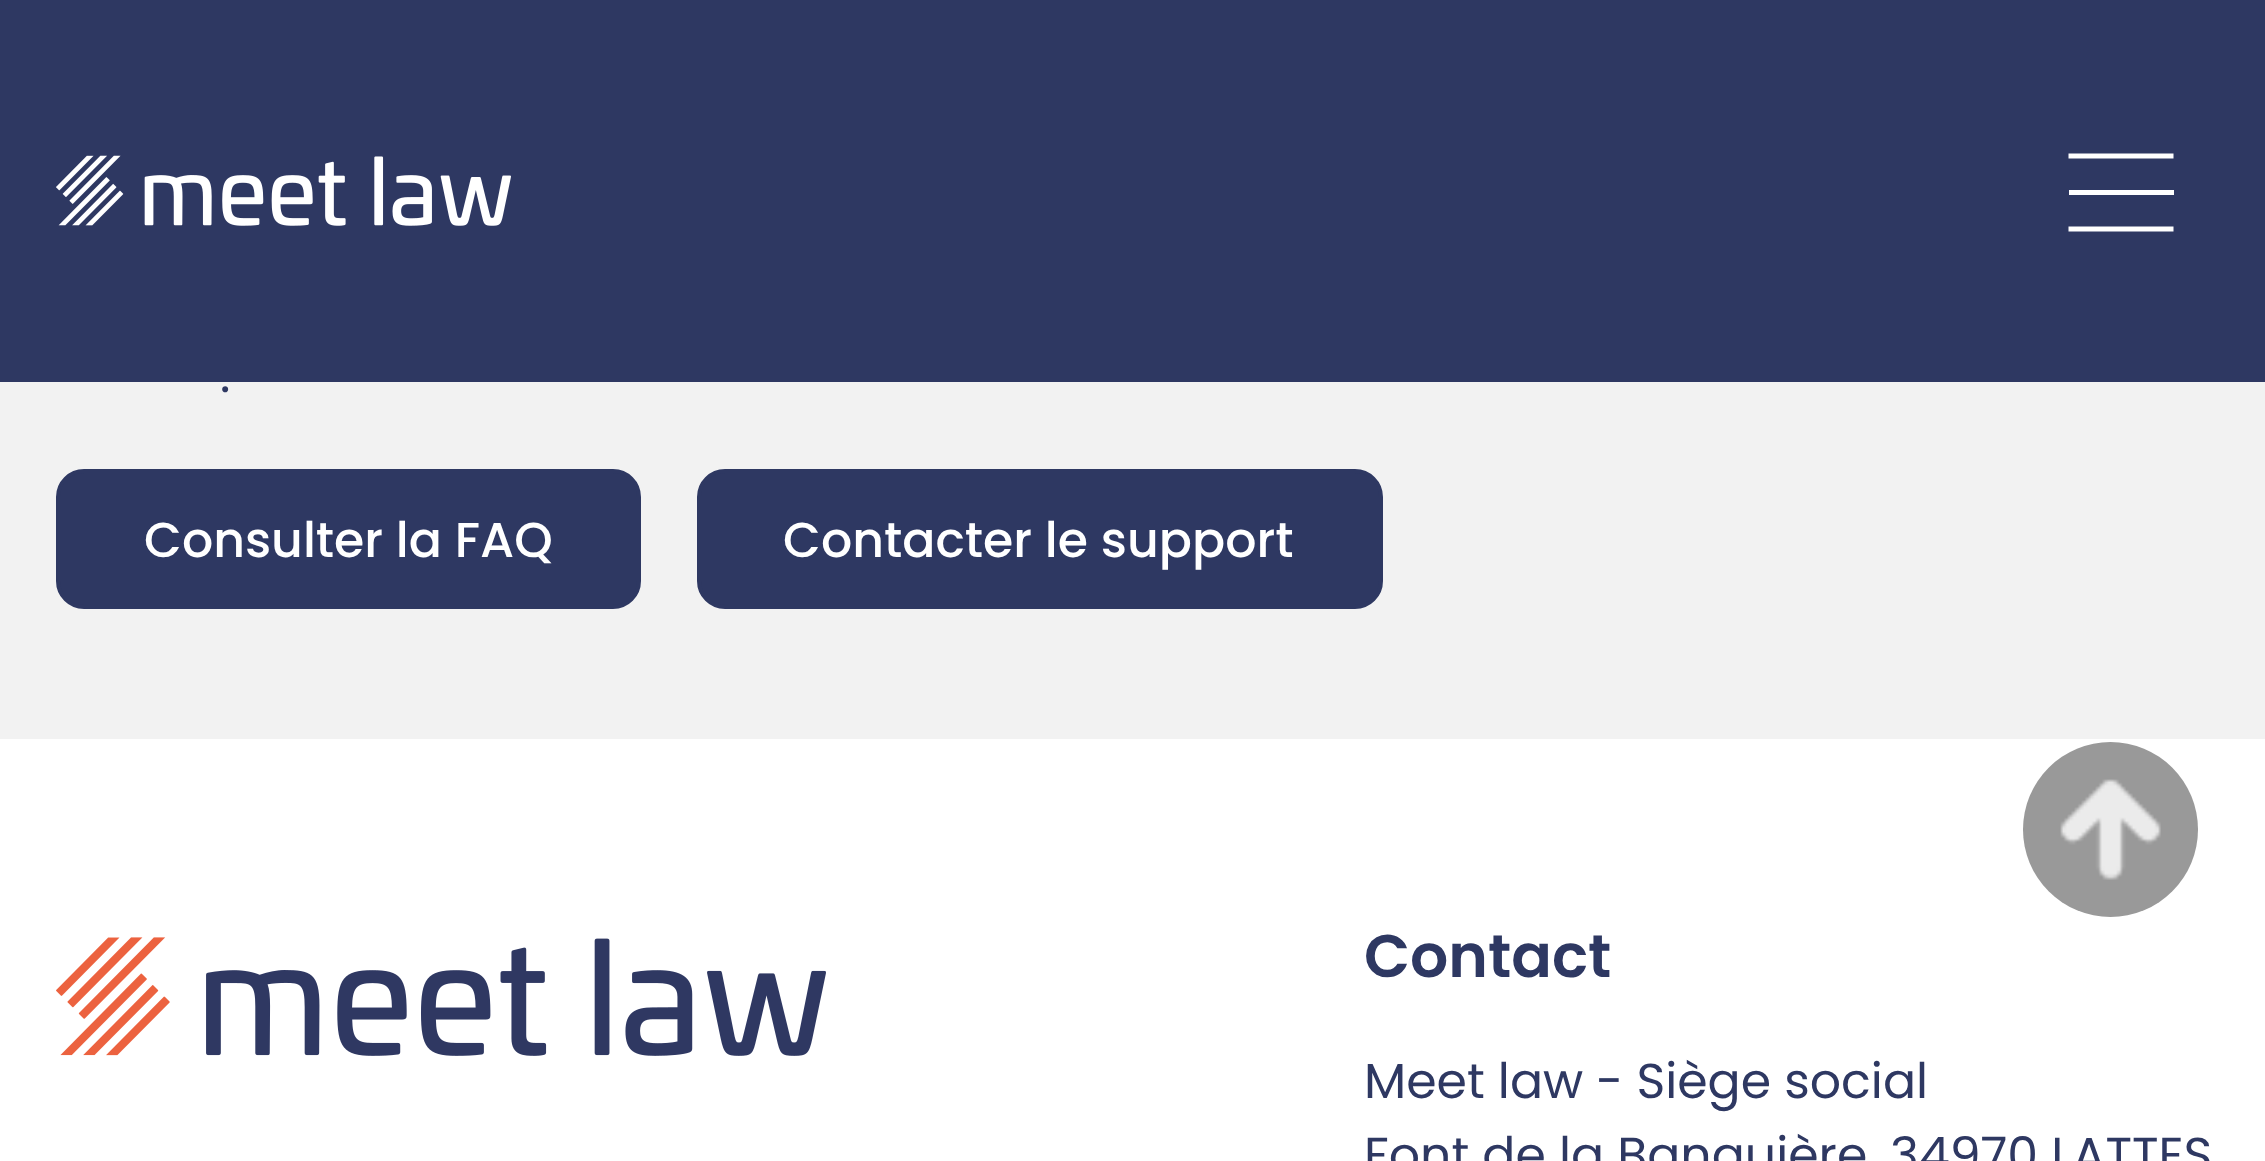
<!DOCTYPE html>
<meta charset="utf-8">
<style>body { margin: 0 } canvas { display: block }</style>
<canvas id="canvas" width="2265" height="1161"></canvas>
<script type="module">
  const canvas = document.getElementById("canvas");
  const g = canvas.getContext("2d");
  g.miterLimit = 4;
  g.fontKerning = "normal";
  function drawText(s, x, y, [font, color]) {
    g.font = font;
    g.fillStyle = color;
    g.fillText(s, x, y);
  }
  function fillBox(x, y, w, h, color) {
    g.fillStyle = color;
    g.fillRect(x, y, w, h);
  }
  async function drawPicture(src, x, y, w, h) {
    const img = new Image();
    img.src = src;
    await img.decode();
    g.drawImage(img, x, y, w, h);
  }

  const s1 = ["49px Poppins", "#2E3862"];
  const s2 = ["500 49px Poppins", "#FFFFFF"];
  const s3 = ["600 60px Poppins", "#2E3862"];

  fillBox(0, 0, 2265, 1161, "#FFFFFF");
  fillBox(0, 0, 2265, 382, "#2E3862");
  await drawPicture("pic1.png", 56, 155, 455, 71);
  g.beginPath();
  g.moveTo(2068.5, 156);
  g.lineTo(2173.5, 156);
  g.strokeStyle = "#FFFFFF";
  g.lineWidth = 5.2;
  g.stroke();
  fillBox(2069, 190, 105, 5, "#FFFFFF");
  g.beginPath();
  g.moveTo(2068.5, 229);
  g.lineTo(2173.5, 229);
  g.stroke();
  fillBox(0, 382, 2265, 357, "#F2F2F2");
  drawText(".", 220, 392, s1);
  g.beginPath();
  g.roundRect(58, 471, 581, 136, 26);
  g.fill();
  g.strokeStyle = "#2E3862";
  g.lineWidth = 4;
  g.stroke();
  drawText("Consulter la FAQ", 144, 557, s2);
  g.fillStyle = "#2E3862";
  g.beginPath();
  g.roundRect(699, 471, 682, 136, 26);
  g.fill();
  g.stroke();
  drawText("Contacter le support", 783, 557, s2);
  await drawPicture("pic2.png", 56, 937, 770, 119);
  drawText("Contact", 1364, 977, s3);
  drawText("Meet law - Siège social", 1364, 1098, s1);
  drawText("Font de la Banquière, 34970 LATTES", 1364, 1172, s1);
  g.fillStyle = "#999999";
  g.beginPath();
  g.arc(2110.5, 829.5, 87.5, 0, Math.PI * 2);
  g.fill();
  await drawPicture("pic3.png", 2060, 779, 101, 101);
</script>
